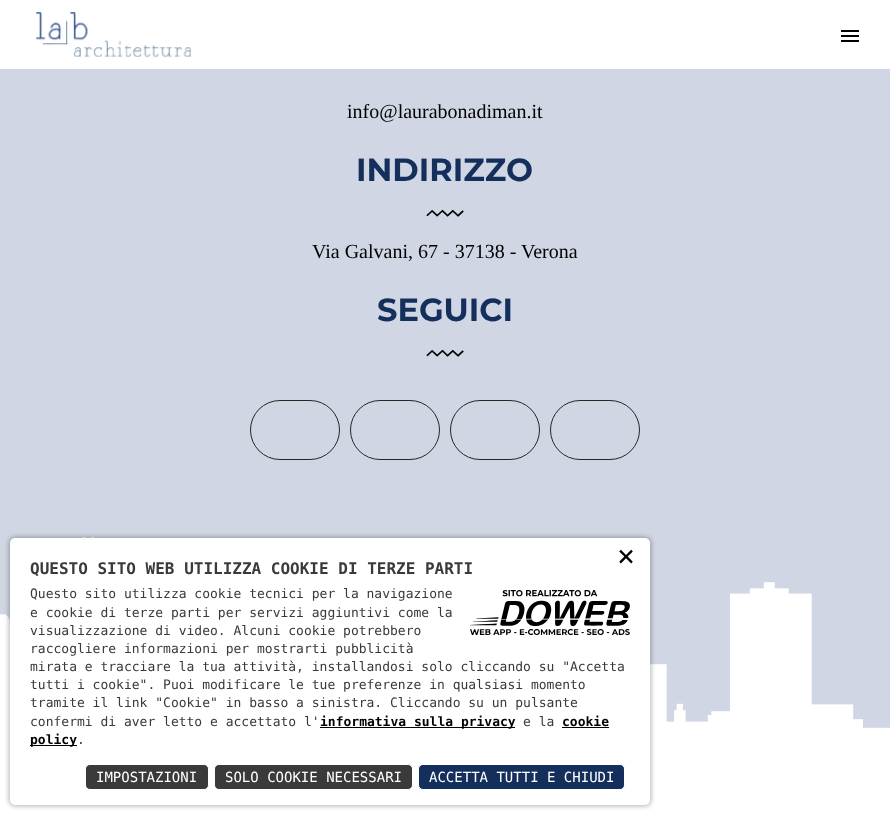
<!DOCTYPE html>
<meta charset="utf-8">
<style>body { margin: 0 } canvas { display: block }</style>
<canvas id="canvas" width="890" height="815"></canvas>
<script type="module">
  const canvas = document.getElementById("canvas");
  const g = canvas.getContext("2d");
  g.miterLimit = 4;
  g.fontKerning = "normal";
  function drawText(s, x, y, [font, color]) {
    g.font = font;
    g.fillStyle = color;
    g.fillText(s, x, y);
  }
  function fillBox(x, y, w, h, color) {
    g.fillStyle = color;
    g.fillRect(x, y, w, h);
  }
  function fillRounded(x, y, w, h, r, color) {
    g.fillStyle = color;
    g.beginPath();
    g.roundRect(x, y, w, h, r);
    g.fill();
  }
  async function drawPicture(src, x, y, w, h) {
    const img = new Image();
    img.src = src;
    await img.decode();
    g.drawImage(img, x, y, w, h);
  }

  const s1 = ["20px Liberation Serif", "#000000"];
  const s2 = ["bold 32px Montserrat", "#142F5C"];
  const s3 = ["30px DejaVu Sans Mono", "#000000"];
  const s4 = ["bold 16px DejaVu Sans Mono", "#3A3A3B"];
  const s5 = ["13px DejaVu Sans Mono", "#3A3A3B"];
  const s6 = ["bold 13px DejaVu Sans Mono", "#000000"];
  const s7 = ["14px DejaVu Sans Mono", "#FFFFFF"];

  fillBox(0, 0, 890, 815, "#D0D6E4");
  fillBox(0, 0, 890, 69, "#FFFFFF");
  await drawPicture("pic1.png", 36, 12, 155, 45);
  fillBox(841, 35, 18, 2, "#000000");
  fillBox(841, 30, 18, 2, "#000000");
  fillBox(841, 40, 18, 2, "#000000");
  drawText("info@laurabonadiman.it", 347, 118, s1);
  await drawPicture("pic2.png", 426, 209, 38, 8);
  drawText("INDIRIZZO", 356, 181, s2);
  drawText("Via Galvani, 67 - 37138 - Verona", 312, 258, s1);
  await drawPicture("pic2.png", 426, 349, 38, 8);
  drawText("SEGUICI", 377, 321, s2);
  g.beginPath();
  g.roundRect(250.5, 400.5, 89, 59, 29.5);
  g.strokeStyle = "#262626";
  g.stroke();
  g.beginPath();
  g.roundRect(350.5, 400.5, 89, 59, 29.5);
  g.stroke();
  g.beginPath();
  g.roundRect(450.5, 400.5, 89, 59, 29.5);
  g.stroke();
  g.beginPath();
  g.roundRect(550.5, 400.5, 89, 59, 29.5);
  g.stroke();
  await drawPicture("pic3.png", 0, 537, 890, 278);
  g.fillStyle = "rgba(0, 0, 0, 0.3)";
  g.filter = "blur(2.5px)";
  g.beginPath();
  g.roundRect(9, 537, 642, 269, 6);
  g.fill();
  g.filter = "none";
  fillRounded(10, 538, 640, 267, 5, "#FFFFFF");
  drawText("×", 617, 566, s3);
  drawText("QUESTO SITO WEB UTILIZZA COOKIE DI TERZE PARTI", 30, 574, s4);
  drawText("Questo sito utilizza cookie tecnici per la navigazione", 30, 598, s5);
  await drawPicture("pic4.png", 470, 590, 160, 45);
  drawText("e cookie di terze parti per servizi aggiuntivi come la", 30, 617, s5);
  drawText("visualizzazione di video. Alcuni cookie potrebbero", 30, 635, s5);
  drawText("raccogliere informazioni per mostrarti pubblicità", 30, 653, s5);
  drawText("mirata e tracciare la tua attività, installandosi solo cliccando su \"Accetta", 30, 671, s5);
  drawText("tutti i cookie\". Puoi modificare le tue preferenze in qualsiasi momento", 30, 689, s5);
  drawText("tramite il link \"Cookie\" in basso a sinistra. Cliccando su un pulsante", 30, 707, s5);
  drawText("confermi di aver letto e accettato l'", 30, 726, s5);
  fillBox(320, 727, 195, 1, "#000000");
  drawText("informativa sulla privacy", 320, 726, s6);
  drawText("e la", 523, 726, s5);
  drawText("cookie", 562, 726, s6);
  fillBox(562, 727, 47, 1, "#000000");
  fillBox(30, 745, 47, 1, "#000000");
  drawText("policy", 30, 744, s6);
  drawText(".", 77, 744, s5);
  g.beginPath();
  g.roundRect(85.5, 764.5, 123, 25, 4.5);
  g.fill();
  g.strokeStyle = "#FFFFFF";
  g.stroke();
  drawText("IMPOSTAZIONI", 96, 782, s7);
  g.fillStyle = "#3A3A3B";
  g.beginPath();
  g.roundRect(214.5, 764.5, 198, 25, 4.5);
  g.fill();
  g.stroke();
  drawText("SOLO COOKIE NECESSARI", 225, 782, s7);
  g.fillStyle = "#142F5C";
  g.beginPath();
  g.roundRect(418.5, 764.5, 206, 25, 4.5);
  g.fill();
  g.stroke();
  drawText("ACCETTA TUTTI E CHIUDI", 429, 782, s7);
</script>
